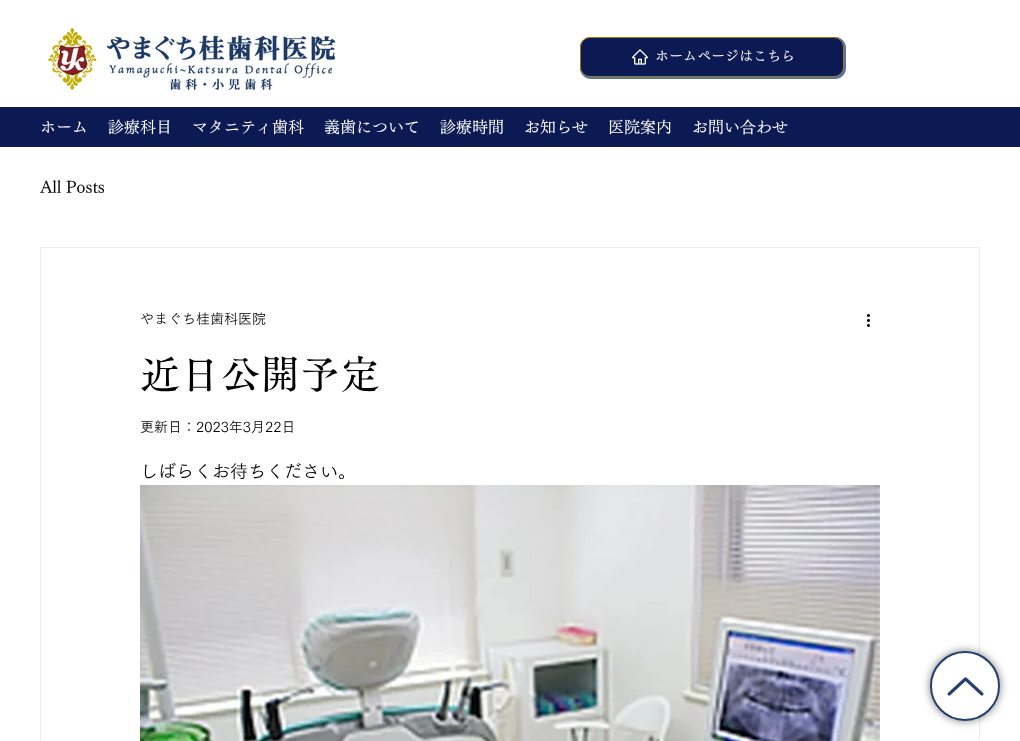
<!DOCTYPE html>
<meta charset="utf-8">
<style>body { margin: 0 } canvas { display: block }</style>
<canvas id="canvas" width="1020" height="741"></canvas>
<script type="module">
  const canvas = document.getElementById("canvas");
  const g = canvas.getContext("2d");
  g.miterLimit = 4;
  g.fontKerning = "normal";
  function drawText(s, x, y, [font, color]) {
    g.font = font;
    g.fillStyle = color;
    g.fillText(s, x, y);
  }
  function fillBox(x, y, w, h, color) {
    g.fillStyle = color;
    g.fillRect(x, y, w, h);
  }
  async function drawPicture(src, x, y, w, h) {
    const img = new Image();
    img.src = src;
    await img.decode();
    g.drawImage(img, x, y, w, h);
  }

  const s1 = ["500 14px 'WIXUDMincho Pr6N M'", "#FFFFFF"];
  const s2 = ["500 16px 'WIXUDMincho Pr6N M'", "#FFFFFF"];
  const s3 = ["500 16px 'WIXUDMincho Pr6N M'", "#000000"];
  const s4 = ["14px 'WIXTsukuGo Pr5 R'", "#000000"];
  const s5 = ["500 40px 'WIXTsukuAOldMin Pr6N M'", "#000000"];
  const s6 = ["18px 'WIXTsukuGo Pr5 R'", "#000000"];

  fillBox(0, 0, 1020, 741, "#FFFFFF");
  await drawPicture("pic1.png", 46, 28, 290, 64);
  g.fillStyle = "#5176B0";
  g.filter = "blur(0.5px)";
  g.beginPath();
  g.roundRect(580, 37, 266, 42, 11);
  g.fill();
  g.filter = "none";
  g.fillStyle = "#0C1A53";
  g.beginPath();
  g.roundRect(580.5, 37.5, 263, 39, 9.5);
  g.fill();
  g.strokeStyle = "#A37700";
  g.stroke();
  await drawPicture("pic2.png", 632, 49, 16, 16);
  drawText("ホームページはこちら", 655, 61, s1);
  fillBox(0, 107, 1020, 40, "#0C1A53");
  drawText("ホーム", 40, 133, s2);
  drawText("診療科目", 108, 133, s2);
  drawText("マタニティ歯科", 192, 133, s2);
  drawText("義歯について", 324, 133, s2);
  drawText("診療時間", 440, 133, s2);
  drawText("お知らせ", 524, 133, s2);
  drawText("医院案内", 608, 133, s2);
  drawText("お問い合わせ", 692, 133, s2);
  drawText("All Posts", 40, 193, s3);
  g.strokeStyle = "#EEECEC";
  g.strokeRect(40.5, 247.5, 939, 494);
  drawText("やまぐち桂歯科医院", 140, 324, s4);
  await drawPicture("pic3.png", 867, 314, 3, 13);
  drawText("近日公開予定", 140, 389, s5);
  drawText("更新日：2023年3月22日", 140, 432, s4);
  drawText("しばらくお待ちください。", 140, 478, s6);
  await drawPicture("pic4.png", 140, 485, 740, 256);
  g.fillStyle = "rgba(0, 0, 0, 0.5)";
  g.filter = "blur(4px)";
  g.beginPath();
  g.roundRect(930, 651, 70, 70, 35);
  g.fill();
  g.filter = "none";
  g.fillStyle = "#FFFFFF";
  g.beginPath();
  g.arc(965, 686, 34, 0, Math.PI * 2);
  g.fill();
  g.strokeStyle = "#25406A";
  g.lineWidth = 2;
  g.stroke();
  await drawPicture("pic5.png", 947, 677, 37, 19);
</script>
